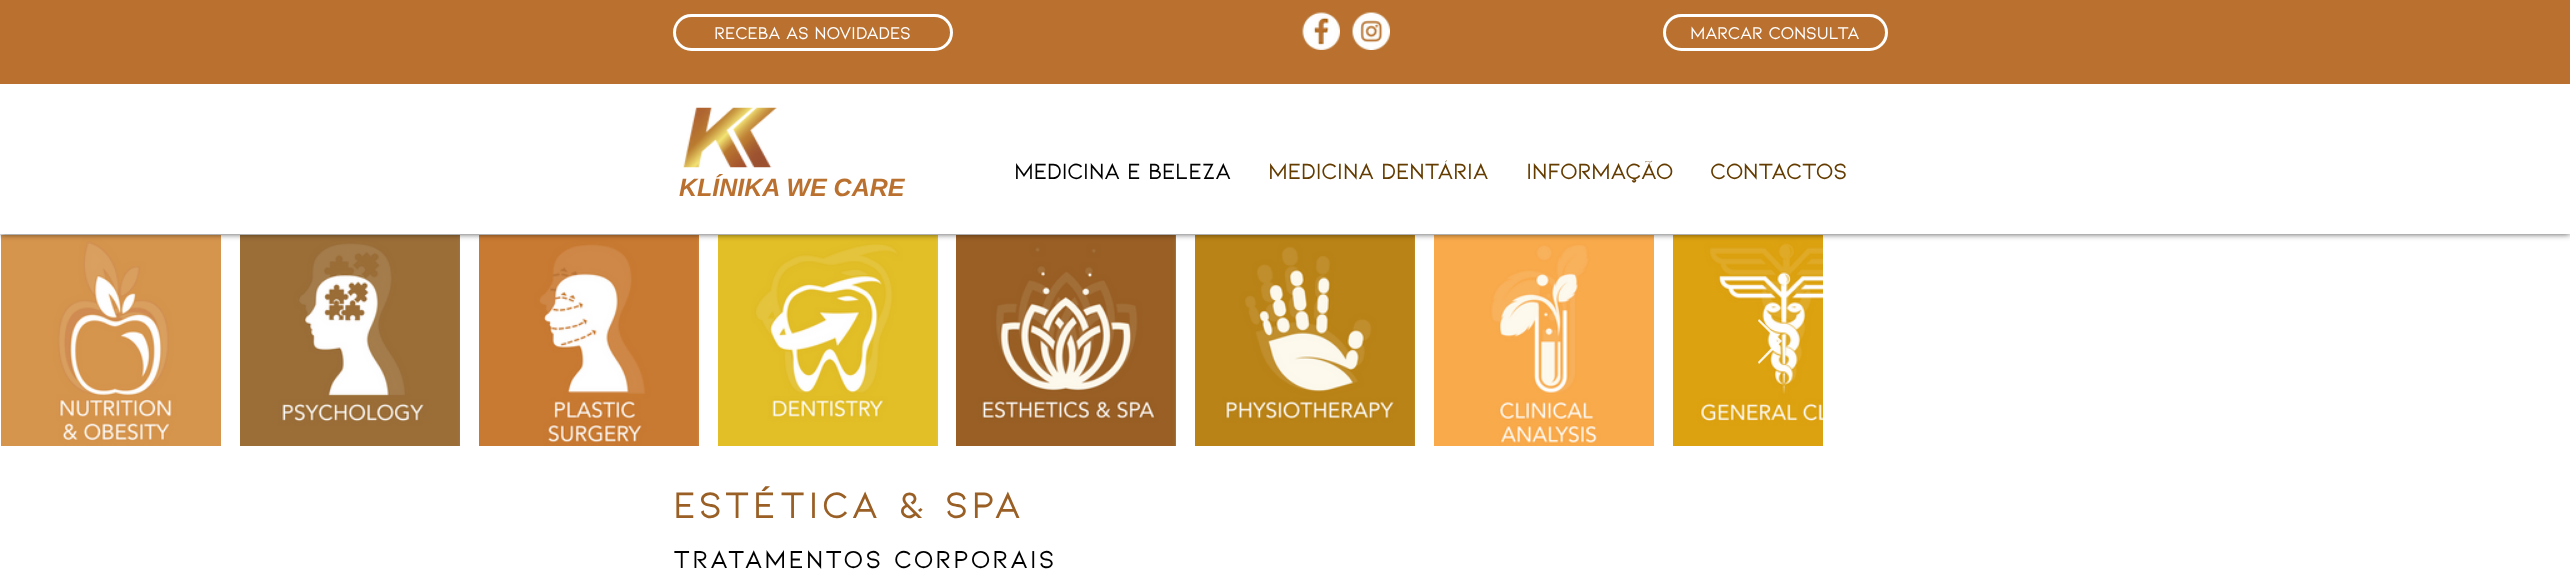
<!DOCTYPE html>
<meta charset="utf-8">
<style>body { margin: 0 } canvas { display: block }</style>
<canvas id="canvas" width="2570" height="570"></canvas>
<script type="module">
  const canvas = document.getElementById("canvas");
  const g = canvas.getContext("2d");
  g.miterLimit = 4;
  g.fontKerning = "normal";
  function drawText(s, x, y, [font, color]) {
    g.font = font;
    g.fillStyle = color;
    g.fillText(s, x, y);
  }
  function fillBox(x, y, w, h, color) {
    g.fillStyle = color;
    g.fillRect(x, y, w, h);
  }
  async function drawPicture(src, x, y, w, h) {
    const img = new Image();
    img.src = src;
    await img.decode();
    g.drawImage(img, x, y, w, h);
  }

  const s1 = ["bold 17.5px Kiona", "#FFFFFF"];
  const s2 = ["italic bold 25px Liberation Sans", "#BA7130"];
  const s3 = ["bold 22.5px Kiona", "#000000"];
  const s4 = ["bold 22.5px Kiona", "#643C00"];
  const s5 = ["bold 37.5px Kiona", "#995F25"];
  const s6 = ["bold 25px Kiona", "#000000"];

  fillBox(0, 0, 2570, 570, "#FFFFFF");
  await drawPicture("pic6.png", 1, 235, 220, 211);
  await drawPicture("pic7.png", 240, 235, 220, 211);
  await drawPicture("pic8.png", 479, 235, 220, 211);
  await drawPicture("pic9.png", 718, 235, 220, 211);
  await drawPicture("pic10.png", 956, 235, 220, 211);
  await drawPicture("pic11.png", 1195, 235, 220, 211);
  await drawPicture("pic12.png", 1434, 235, 220, 211);
  await drawPicture("pic13.png", 1673, 235, 150, 211);
  g.save();
  g.beginPath();
  g.moveTo(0, 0);
  g.lineTo(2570, 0);
  g.lineTo(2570, 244);
  g.lineTo(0, 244);
  g.closePath();
  g.moveTo(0, 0);
  g.lineTo(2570, 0);
  g.lineTo(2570, 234);
  g.lineTo(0, 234);
  g.closePath();
  g.clip("evenodd");
  g.fillStyle = "rgba(0, 0, 0, 0.7)";
  g.filter = "blur(3px)";
  g.beginPath();
  g.rect(0, 0, 2570, 234);
  g.fill();
  g.filter = "none";
  g.restore();
  fillBox(0, 233, 2570, 1, "rgba(255, 255, 255, 0.6)");
  fillBox(0, 0, 2570, 84, "#BA7130");
  await drawPicture("pic1.png", 1302, 12, 38, 38);
  await drawPicture("pic2.png", 1352, 12, 38, 38);
  g.beginPath();
  g.roundRect(674.5, 15.5, 277, 34, 17);
  g.strokeStyle = "#FFFFFF";
  g.lineWidth = 3;
  g.stroke();
  drawText("Receba as novidades", 714, 39, s1);
  await drawPicture("pic3.png", 1302, 12, 38, 38);
  await drawPicture("pic4.png", 1352, 12, 38, 38);
  g.beginPath();
  g.roundRect(1664.5, 15.5, 222, 34, 17);
  g.stroke();
  drawText("Marcar Consulta", 1690, 39, s1);
  await drawPicture("pic5.png", 683, 107, 94, 61);
  drawText("KLÍNIKA WE CARE", 679, 196, s2);
  drawText("Medicina e Beleza", 1014, 179, s3);
  drawText("Medicina Dentária", 1268, 179, s4);
  drawText("Informação", 1526, 179, s4);
  drawText("Contactos", 1710, 179, s4);
  g.fillStyle = "rgba(255, 255, 255, 0.9)";
  g.beginPath();
  g.moveTo(1758, 321);
  g.lineTo(1759, 319);
  g.lineTo(1782, 341);
  g.lineTo(1759, 364);
  g.lineTo(1758, 362);
  g.lineTo(1778, 341);
  g.closePath();
  g.fill();
  g.letterSpacing = "3.75px";
  drawText("Estética & SPA", 673, 518, s5);
  g.letterSpacing = "2.5px";
  drawText("Tratamentos Corporais", 673, 568, s6);
</script>
